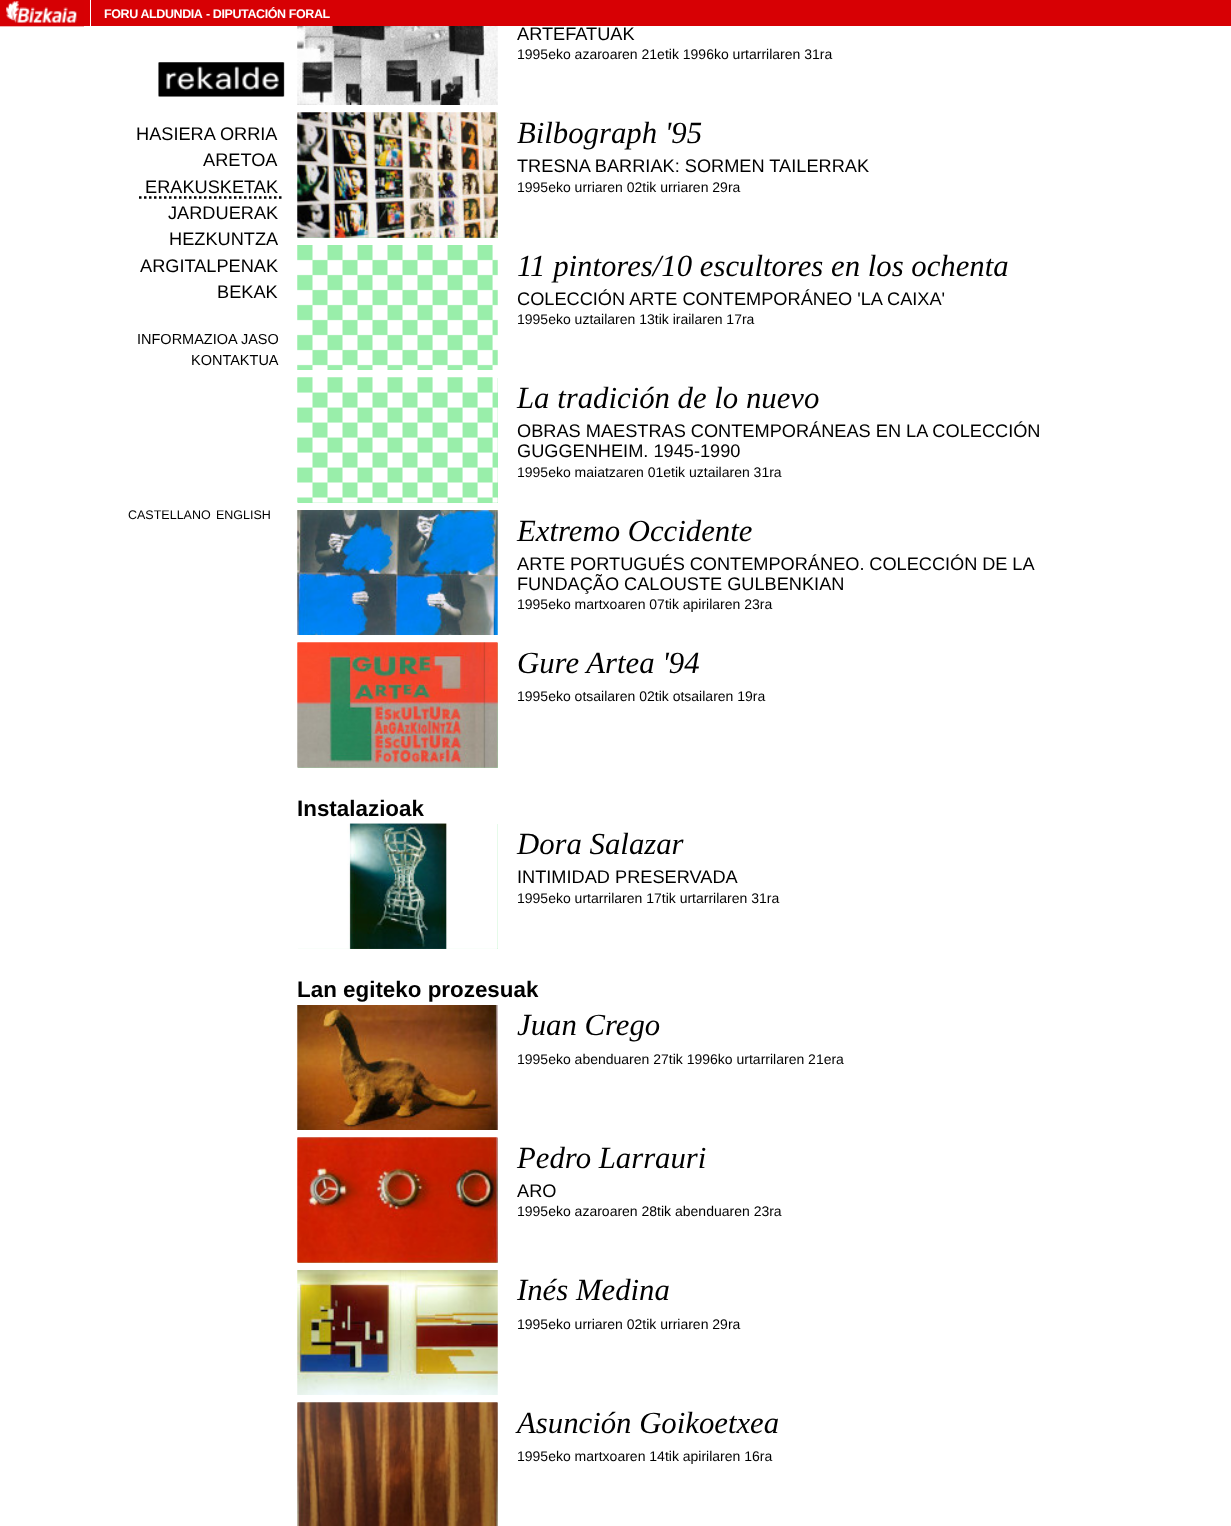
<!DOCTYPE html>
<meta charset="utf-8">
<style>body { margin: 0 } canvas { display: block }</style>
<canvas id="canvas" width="1231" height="1526"></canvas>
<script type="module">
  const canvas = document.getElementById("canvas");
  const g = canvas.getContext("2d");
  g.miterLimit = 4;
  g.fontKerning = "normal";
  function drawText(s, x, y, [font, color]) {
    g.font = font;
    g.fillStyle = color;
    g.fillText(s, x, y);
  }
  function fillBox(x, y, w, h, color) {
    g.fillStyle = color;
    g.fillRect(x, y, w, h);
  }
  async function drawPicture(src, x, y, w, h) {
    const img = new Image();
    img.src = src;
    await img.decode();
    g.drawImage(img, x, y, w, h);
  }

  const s1 = ["bold 12.5px Liberation Sans", "#FFFFFF"];
  const s2 = ["18.2px Liberation Sans", "#000000"];
  const s3 = ["14.5px Liberation Sans", "#000000"];
  const s4 = ["14px Liberation Sans", "#000000"];
  const s5 = ["italic 30.75px Liberation Serif", "#000000"];
  const s6 = ["bold 22.4px Liberation Sans", "#000000"];
  const s7 = ["12.5px Liberation Sans", "#000000"];

  fillBox(0, 0, 1231, 1526, "#FFFFFF");
  fillBox(84, 0, 1147, 26, "#D70004");
  await drawPicture("pic1.png", 0, 0, 84, 27);
  fillBox(90, 0, 1, 30, "#FFFFFF");
  g.letterSpacing = "-0.4px";
  drawText("FORU ALDUNDIA", 104, 18, s1);
  drawText("- DIPUTACIÓN FORAL", 206, 18, s1);
  await drawPicture("pic2.png", 158, 62, 127, 35);
  await drawPicture("pic3.png", 158, 62, 126, 35);
  g.letterSpacing = "0px";
  drawText("HASIERA ORRIA", 136, 140, s2);
  drawText("ARETOA", 203, 166, s2);
  drawText("ERAKUSKETAK", 145, 193, s2);
  g.beginPath();
  g.moveTo(139, 197.5);
  g.lineTo(284, 197.5);
  g.strokeStyle = "#000000";
  g.lineWidth = 2.5;
  g.setLineDash([2.5, 2.5]);
  g.stroke();
  drawText("JARDUERAK", 168, 219, s2);
  drawText("HEZKUNTZA", 169, 245, s2);
  drawText("ARGITALPENAK", 140, 272, s2);
  drawText("BEKAK", 217, 298, s2);
  drawText("INFORMAZIOA JASO", 137, 344, s3);
  drawText("KONTAKTUA", 191, 365, s3);
  await drawPicture("pic4.png", 297, 26, 201, 79);
  await drawPicture("pic5.png", 297, 26, 201, 79);
  drawText("ARTEFATUAK", 517, 40, s2);
  drawText("1995eko azaroaren 21etik 1996ko urtarrilaren 31ra", 517, 59, s4);
  fillBox(298, 113, 200, 125, "#99EEAA");
  await drawPicture("pic6.png", 297, 112, 201, 126);
  await drawPicture("pic7.png", 297, 112, 201, 126);
  drawText("Bilbograph '95", 517, 143, s5);
  drawText("TRESNA BARRIAK: SORMEN TAILERRAK", 517, 172, s2);
  drawText("1995eko urriaren 02tik urriaren 29ra", 517, 192, s4);
  await drawPicture("pic8.png", 297, 245, 201, 125);
  await drawPicture("pic9.png", 297, 245, 201, 125);
  drawText("11 pintores/10 escultores en los ochenta", 517, 276, s5);
  drawText("COLECCIÓN ARTE CONTEMPORÁNEO 'LA CAIXA'", 517, 305, s2);
  drawText("1995eko uztailaren 13tik irailaren 17ra", 517, 324, s4);
  fillBox(298, 378, 200, 125, "#99EEAA");
  await drawPicture("pic10.png", 297, 377, 201, 126);
  await drawPicture("pic11.png", 297, 377, 201, 126);
  drawText("La tradición de lo nuevo", 517, 408, s5);
  drawText("OBRAS MAESTRAS CONTEMPORÁNEAS EN LA COLECCIÓN", 517, 437, s2);
  drawText("GUGGENHEIM. 1945-1990", 517, 457, s2);
  drawText("1995eko maiatzaren 01etik uztailaren 31ra", 517, 477, s4);
  await drawPicture("pic12.png", 297, 510, 201, 125);
  await drawPicture("pic13.png", 297, 510, 201, 125);
  drawText("Extremo Occidente", 517, 541, s5);
  g.wordSpacing = "-0.25px";
  drawText("ARTE PORTUGUÉS CONTEMPORÁNEO. COLECCIÓN DE LA", 517, 570, s2);
  g.wordSpacing = "0px";
  drawText("FUNDAÇÃO CALOUSTE GULBENKIAN", 517, 590, s2);
  drawText("1995eko martxoaren 07tik apirilaren 23ra", 517, 609, s4);
  fillBox(298, 643, 200, 125, "#99EEAA");
  await drawPicture("pic14.png", 297, 642, 201, 126);
  await drawPicture("pic15.png", 297, 642, 201, 126);
  drawText("Gure Artea '94", 517, 673, s5);
  drawText("1995eko otsailaren 02tik otsailaren 19ra", 517, 701, s4);
  drawText("Instalazioak", 297, 816, s6);
  fillBox(298, 824, 200, 125, "#99EEAA");
  await drawPicture("pic16.png", 298, 823, 200, 126);
  await drawPicture("pic17.png", 298, 823, 200, 126);
  drawText("Dora Salazar", 517, 854, s5);
  drawText("INTIMIDAD PRESERVADA", 517, 883, s2);
  drawText("1995eko urtarrilaren 17tik urtarrilaren 31ra", 517, 903, s4);
  drawText("Lan egiteko prozesuak", 297, 997, s6);
  await drawPicture("pic18.png", 297, 1005, 201, 125);
  await drawPicture("pic19.png", 297, 1005, 201, 125);
  drawText("Juan Crego", 517, 1035, s5);
  drawText("1995eko abenduaren 27tik 1996ko urtarrilaren 21era", 517, 1064, s4);
  fillBox(298, 1138, 200, 125, "#99EEAA");
  await drawPicture("pic20.png", 297, 1137, 201, 126);
  await drawPicture("pic21.png", 297, 1137, 201, 126);
  drawText("Pedro Larrauri", 517, 1168, s5);
  drawText("ARO", 517, 1197, s2);
  drawText("1995eko azaroaren 28tik abenduaren 23ra", 517, 1216, s4);
  await drawPicture("pic22.png", 297, 1270, 201, 125);
  await drawPicture("pic23.png", 297, 1270, 201, 125);
  drawText("Inés Medina", 517, 1300, s5);
  drawText("1995eko urriaren 02tik urriaren 29ra", 517, 1329, s4);
  await drawPicture("pic24.png", 297, 1402, 201, 124);
  await drawPicture("pic25.png", 297, 1402, 201, 124);
  drawText("Asunción Goikoetxea", 517, 1433, s5);
  drawText("1995eko martxoaren 14tik apirilaren 16ra", 517, 1461, s4);
  drawText("CASTELLANO", 128, 519, s7);
  drawText("ENGLISH", 216, 519, s7);
</script>
